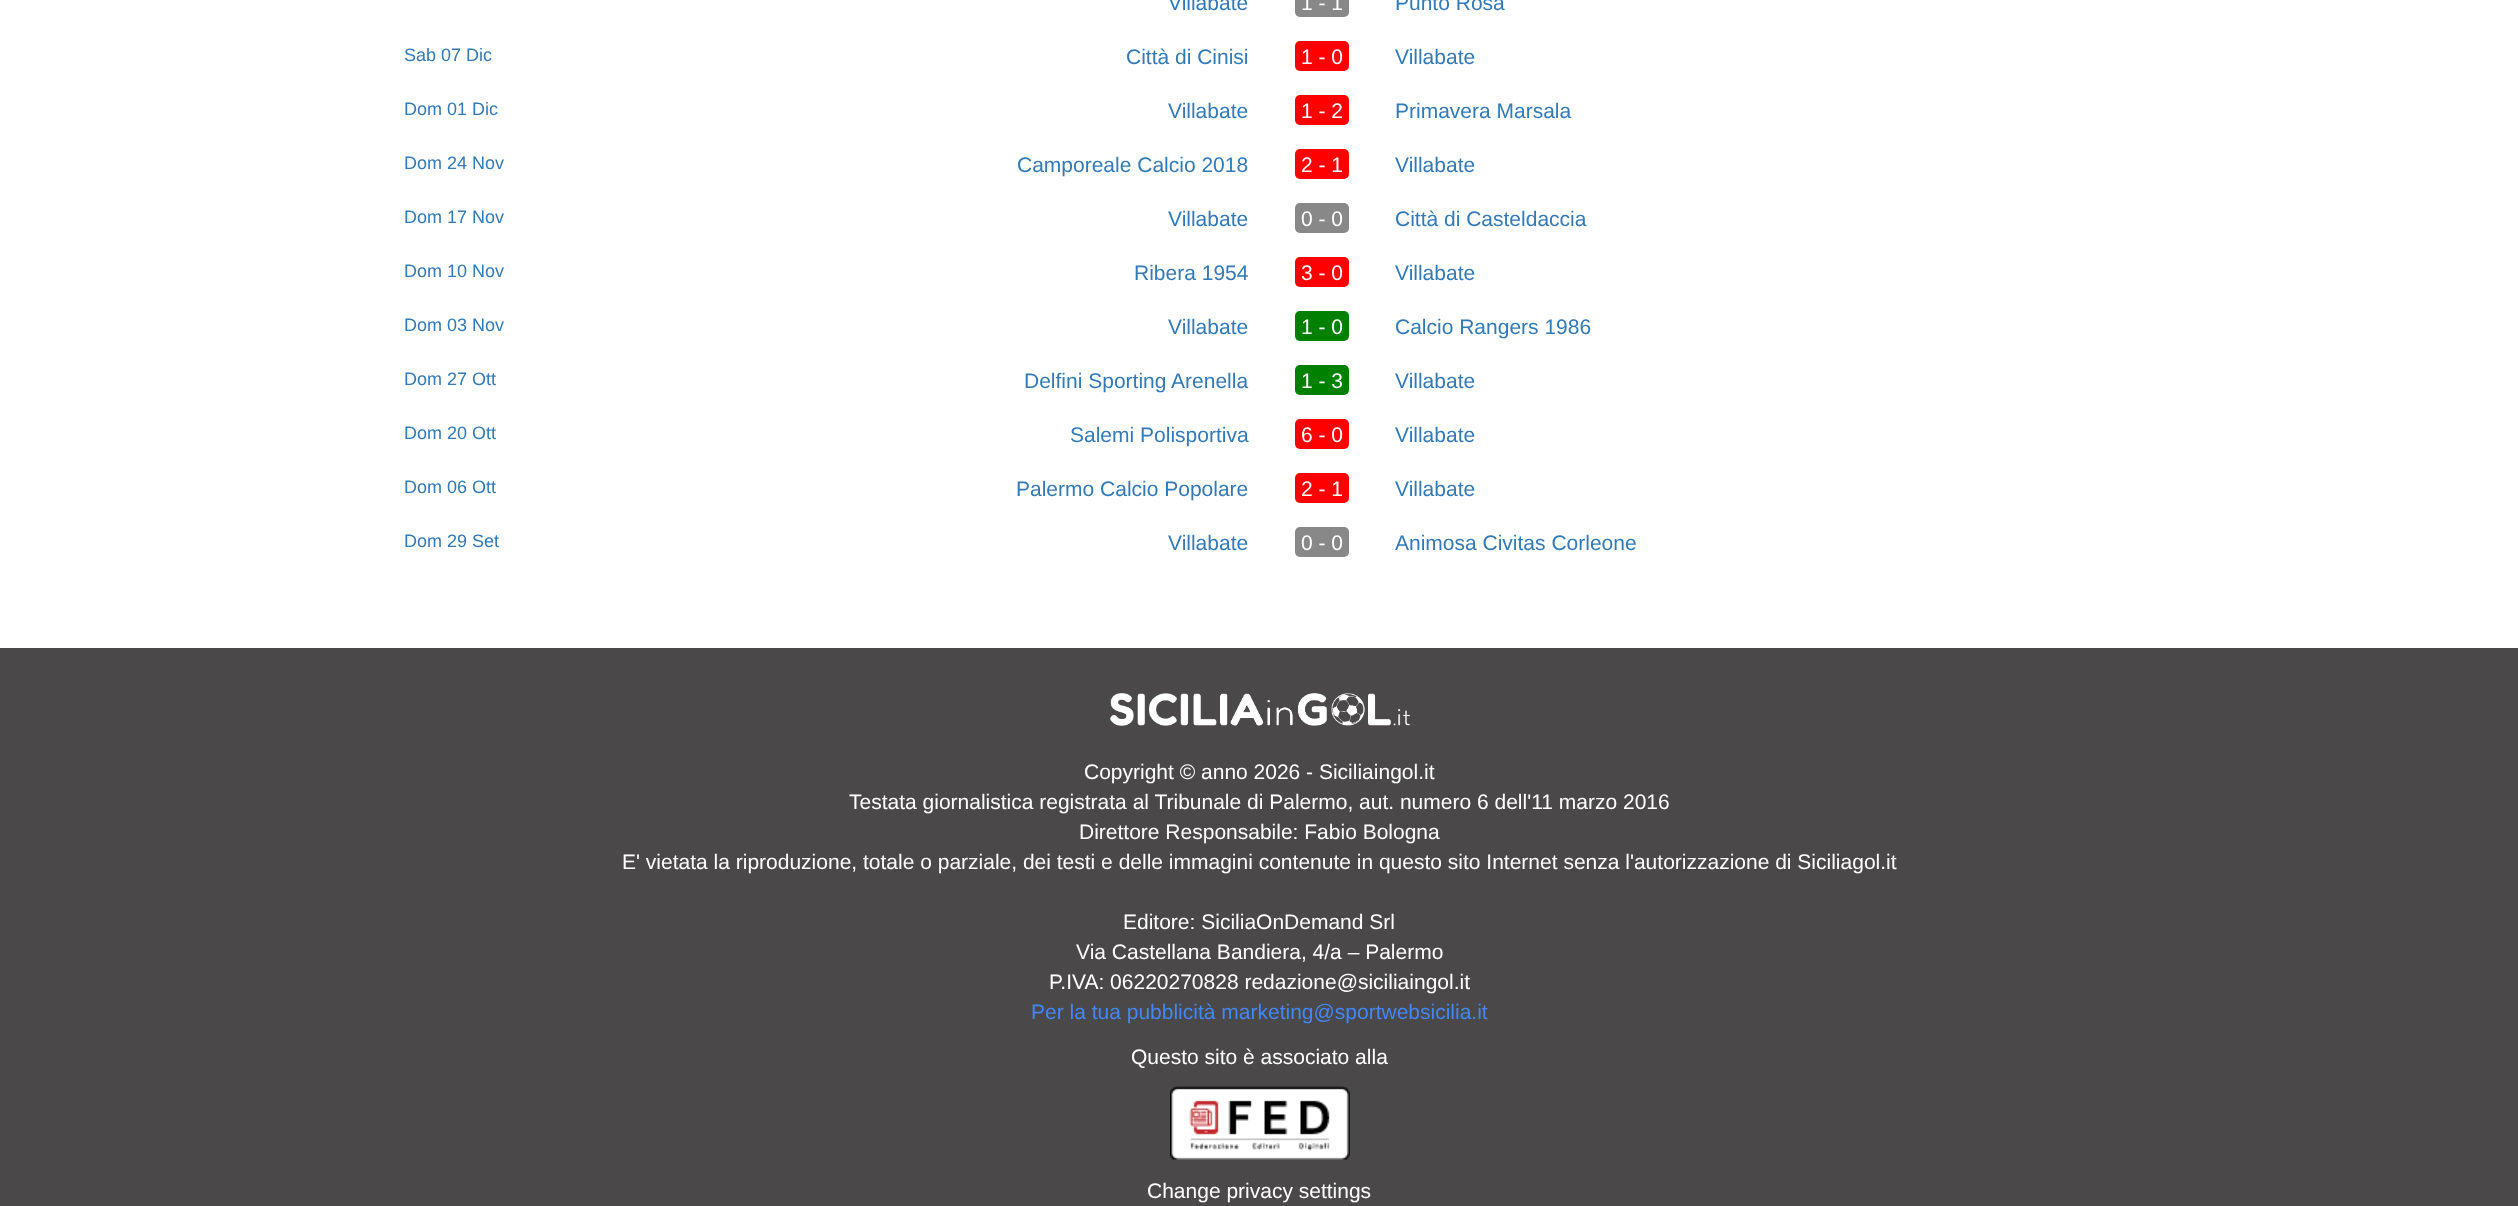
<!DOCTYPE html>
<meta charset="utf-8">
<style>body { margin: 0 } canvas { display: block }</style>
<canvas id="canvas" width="2518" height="1206"></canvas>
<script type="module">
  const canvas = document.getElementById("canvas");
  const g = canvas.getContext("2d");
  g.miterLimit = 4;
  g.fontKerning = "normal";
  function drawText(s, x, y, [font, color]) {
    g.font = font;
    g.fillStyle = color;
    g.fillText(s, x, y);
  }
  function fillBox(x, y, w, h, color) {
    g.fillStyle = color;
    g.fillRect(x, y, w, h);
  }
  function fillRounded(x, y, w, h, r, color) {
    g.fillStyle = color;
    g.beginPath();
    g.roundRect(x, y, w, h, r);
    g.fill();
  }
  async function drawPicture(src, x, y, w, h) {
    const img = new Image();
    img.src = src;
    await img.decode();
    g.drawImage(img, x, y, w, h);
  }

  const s1 = ["21px Liberation Sans", "#337AB7"];
  const s2 = ["21px Liberation Sans", "#FFFFFF"];
  const s3 = ["18px Liberation Sans", "#337AB7"];
  const s4 = ["21px Liberation Sans", "#4287F5"];

  fillBox(0, 0, 2518, 1206, "#FFFFFF");
  drawText("Villabate", 1168, 10, s1);
  fillRounded(1295, -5, 54, 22, 5, "#888888");
  drawText("1 - 1", 1301, 10, s2);
  drawText("Punto Rosa", 1395, 10, s1);
  drawText("Sab 07 Dic", 404, 61, s3);
  drawText("Città di Cinisi", 1126, 64, s1);
  fillRounded(1295, 41, 54, 30, 5, "#FF0000");
  drawText("1 - 0", 1301, 64, s2);
  drawText("Villabate", 1395, 64, s1);
  drawText("Dom 01 Dic", 404, 115, s3);
  drawText("Villabate", 1168, 118, s1);
  fillRounded(1295, 95, 54, 30, 5, "#FF0000");
  drawText("1 - 2", 1301, 118, s2);
  drawText("Primavera Marsala", 1395, 118, s1);
  drawText("Dom 24 Nov", 404, 169, s3);
  drawText("Camporeale Calcio 2018", 1017, 172, s1);
  fillRounded(1295, 149, 54, 30, 5, "#FF0000");
  drawText("2 - 1", 1301, 172, s2);
  drawText("Villabate", 1395, 172, s1);
  drawText("Dom 17 Nov", 404, 223, s3);
  drawText("Villabate", 1168, 226, s1);
  fillRounded(1295, 203, 54, 30, 5, "#888888");
  drawText("0 - 0", 1301, 226, s2);
  drawText("Città di Casteldaccia", 1395, 226, s1);
  drawText("Dom 10 Nov", 404, 277, s3);
  drawText("Ribera 1954", 1134, 280, s1);
  fillRounded(1295, 257, 54, 30, 5, "#FF0000");
  drawText("3 - 0", 1301, 280, s2);
  drawText("Villabate", 1395, 280, s1);
  drawText("Dom 03 Nov", 404, 331, s3);
  drawText("Villabate", 1168, 334, s1);
  fillRounded(1295, 311, 54, 30, 5, "#008000");
  drawText("1 - 0", 1301, 334, s2);
  drawText("Calcio Rangers 1986", 1395, 334, s1);
  drawText("Dom 27 Ott", 404, 385, s3);
  drawText("Delfini Sporting Arenella", 1024, 388, s1);
  fillRounded(1295, 365, 54, 30, 5, "#008000");
  drawText("1 - 3", 1301, 388, s2);
  drawText("Villabate", 1395, 388, s1);
  drawText("Dom 20 Ott", 404, 439, s3);
  drawText("Salemi Polisportiva", 1070, 442, s1);
  fillRounded(1295, 419, 54, 30, 5, "#FF0000");
  drawText("6 - 0", 1301, 442, s2);
  drawText("Villabate", 1395, 442, s1);
  drawText("Dom 06 Ott", 404, 493, s3);
  drawText("Palermo Calcio Popolare", 1016, 496, s1);
  fillRounded(1295, 473, 54, 30, 5, "#FF0000");
  drawText("2 - 1", 1301, 496, s2);
  drawText("Villabate", 1395, 496, s1);
  drawText("Dom 29 Set", 404, 547, s3);
  drawText("Villabate", 1168, 550, s1);
  fillRounded(1295, 527, 54, 30, 5, "#888888");
  drawText("0 - 0", 1301, 550, s2);
  drawText("Animosa Civitas Corleone", 1395, 550, s1);
  fillBox(0, 648, 2518, 558, "#4A4849");
  await drawPicture("pic1.png", 1110, 693, 300, 33);
  drawText("Copyright © anno 2026 - Siciliaingol.it", 1084, 779, s2);
  drawText("Testata giornalistica registrata al Tribunale di Palermo, aut. numero 6 dell'11 marzo 2016", 849, 809, s2);
  drawText("Direttore Responsabile: Fabio Bologna", 1079, 839, s2);
  drawText("E' vietata la riproduzione, totale o parziale, dei testi e delle immagini contenute in questo sito Internet senza l'autorizzazione di Siciliagol.it", 622, 869, s2);
  drawText("Editore: SiciliaOnDemand Srl", 1123, 929, s2);
  drawText("Via Castellana Bandiera, 4/a – Palermo", 1076, 959, s2);
  drawText("P.IVA: 06220270828 redazione@siciliaingol.it", 1049, 989, s2);
  drawText("Per la tua pubblicità marketing@sportwebsicilia.it", 1031, 1019, s4);
  drawText("Questo sito è associato alla", 1131, 1064, s2);
  await drawPicture("pic2.png", 1170, 1086, 180, 74);
  drawText("Change privacy settings", 1147, 1198, s2);
</script>
